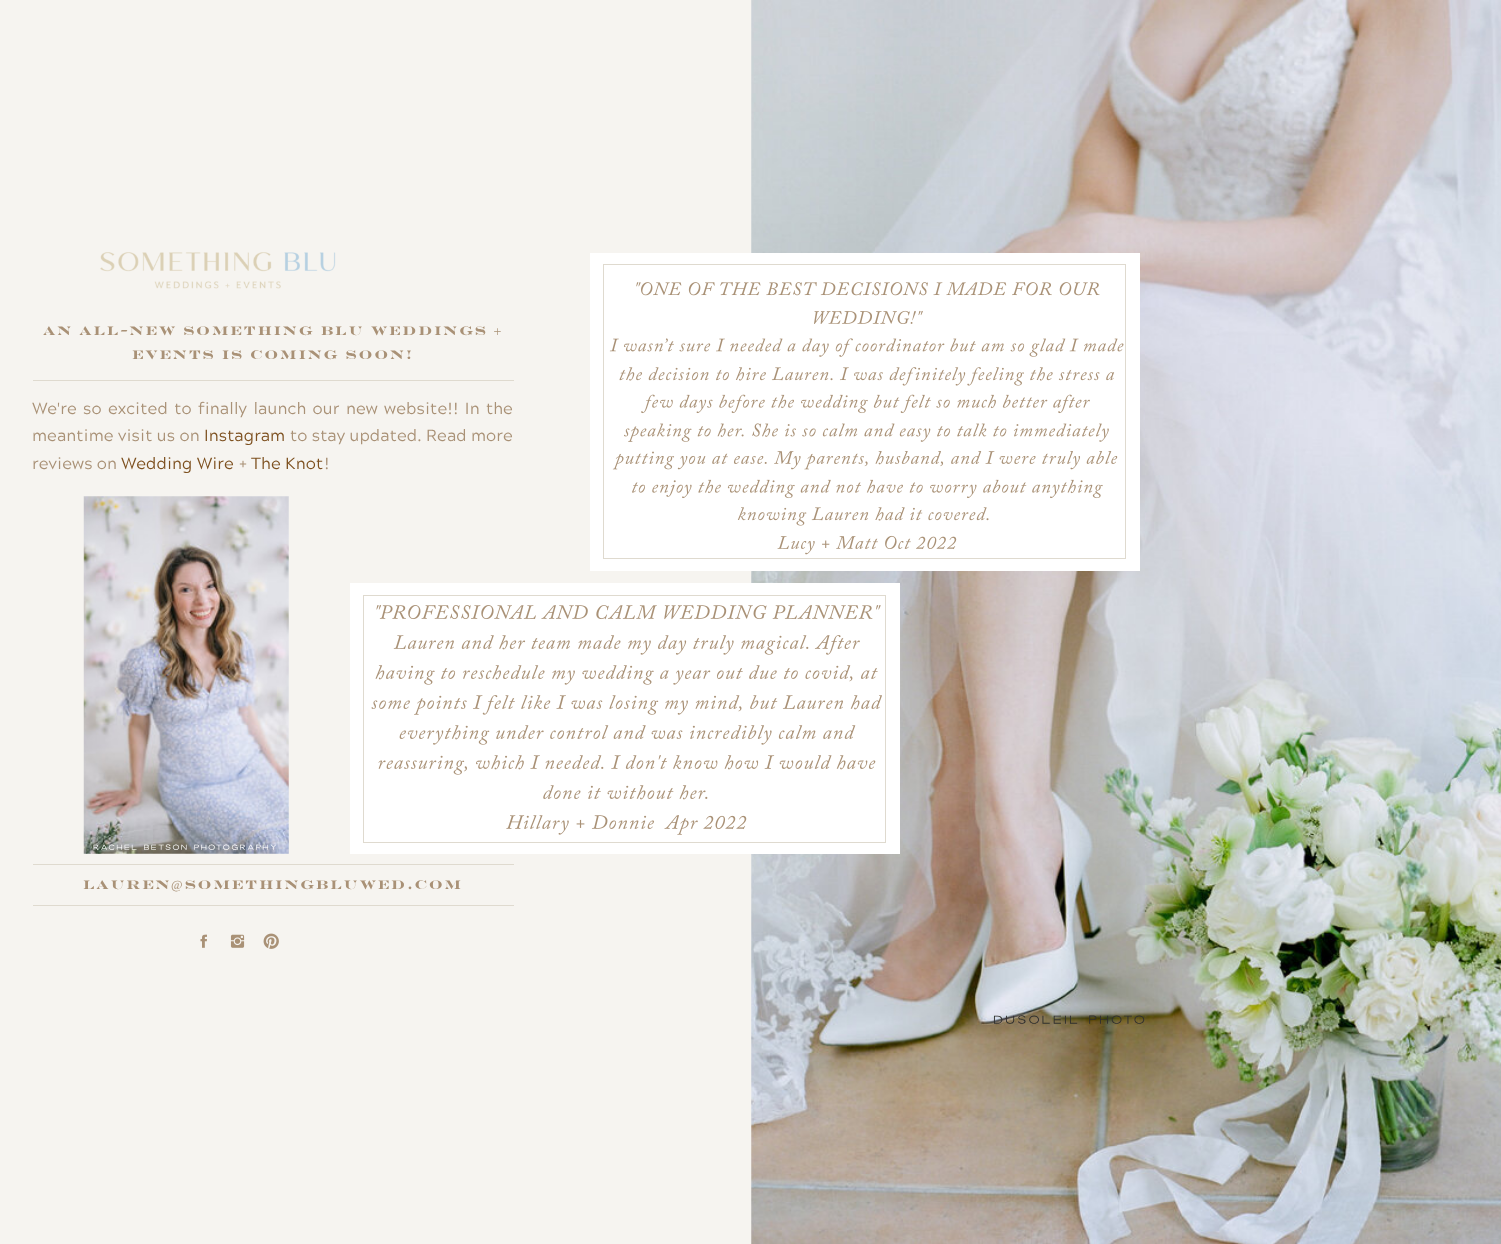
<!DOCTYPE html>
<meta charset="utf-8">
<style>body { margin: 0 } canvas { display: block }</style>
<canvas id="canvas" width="1501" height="1244"></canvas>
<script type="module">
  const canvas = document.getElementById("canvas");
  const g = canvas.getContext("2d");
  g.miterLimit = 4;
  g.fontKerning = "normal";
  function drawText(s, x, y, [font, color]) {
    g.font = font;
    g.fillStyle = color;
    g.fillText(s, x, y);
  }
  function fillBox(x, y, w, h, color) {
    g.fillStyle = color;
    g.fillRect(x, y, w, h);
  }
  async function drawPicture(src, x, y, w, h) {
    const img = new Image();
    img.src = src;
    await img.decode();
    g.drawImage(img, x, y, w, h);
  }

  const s1 = ["bold 12.5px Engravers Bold", "#A99176"];
  const s2 = ["16.25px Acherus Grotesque", "#A99176"];
  const s3 = ["16.25px Acherus Grotesque", "#7D501F"];
  const s4 = ["300 8.75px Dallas", "#FFFFFF"];
  const s5 = ["12.5px Liberation Serif", "#A99176"];
  const s6 = ["300 13.75px Dallas", "#2F2F2E"];

  fillBox(0, 0, 1501, 1244, "#F6F4F0");
  await drawPicture("pic1.png", 100, 252, 236, 37);
  await drawPicture("pic2.png", 751, 0, 750, 1244);
  fillBox(590, 253, 550, 318, "#FFFFFF");
  g.strokeStyle = "#DFDACF";
  g.strokeRect(603.5, 264.5, 522, 294);
  g.letterSpacing = "1.9px";
  drawText("An all-new SOMETHING BLU WEDDINGS +", 43, 335, s1);
  drawText("EVENTS is Coming Soon!", 132, 359, s1);
  await drawPicture("pic3.png", 636, 282, 464, 14);
  await drawPicture("pic4.png", 814, 310, 109, 14);
  await drawPicture("pic5.png", 609, 338, 515, 19);
  await drawPicture("pic6.png", 619, 367, 496, 19);
  await drawPicture("pic7.png", 641, 394, 449, 20);
  await drawPicture("pic8.png", 624, 423, 485, 19);
  await drawPicture("pic9.png", 612, 451, 506, 19);
  await drawPicture("pic10.png", 632, 479, 471, 20);
  await drawPicture("pic11.png", 737, 507, 252, 19);
  await drawPicture("pic12.png", 777, 535, 180, 20);
  fillBox(33, 380, 481, 1, "#DFDACF");
  g.letterSpacing = "0.15px";
  g.wordSpacing = "2px";
  drawText("We're so excited to finally launch our new website!! In the", 32, 414, s2);
  g.wordSpacing = "0px";
  drawText("meantime visit us on", 32, 441, s2);
  drawText("Instagram", 204, 441, s3);
  drawText("to stay updated. Read more", 290, 441, s2);
  drawText("reviews on", 32, 469, s2);
  drawText("Wedding Wire", 121, 469, s3);
  drawText("+", 239, 469, s2);
  drawText("The Knot", 251, 469, s3);
  drawText("!", 324, 469, s2);
  await drawPicture("pic13.png", 83, 496, 206, 358);
  fillBox(350, 583, 550, 271, "#FFFFFF");
  g.strokeRect(363.5, 595.5, 522, 247);
  await drawPicture("pic14.png", 376, 605, 505, 15);
  await drawPicture("pic15.png", 393, 635, 467, 20);
  await drawPicture("pic16.png", 375, 665, 503, 20);
  await drawPicture("pic17.png", 371, 695, 511, 20);
  await drawPicture("pic18.png", 399, 725, 457, 20);
  await drawPicture("pic19.png", 378, 755, 498, 20);
  await drawPicture("pic20.png", 543, 785, 165, 15);
  await drawPicture("pic21.png", 506, 815, 241, 20);
  g.letterSpacing = "1.3px";
  drawText("RACHEL BETSON PHOTOGRAPHY", 93, 850, s4);
  fillBox(33, 864, 481, 1, "#DFDACF");
  g.letterSpacing = "1.9px";
  drawText("Lauren", 83, 889, s1);
  drawText("@", 171, 889, s5);
  drawText("somethingbluwed.com", 185, 889, s1);
  fillBox(33, 905, 481, 1, "#DFDACF");
  await drawPicture("pic22.png", 200, 934, 7, 14);
  await drawPicture("pic23.png", 230, 934, 15, 14);
  await drawPicture("pic24.png", 263, 933, 16, 16);
  g.letterSpacing = "2px";
  drawText("DUSOLEIL PHOTO", 993, 1024, s6);
</script>
